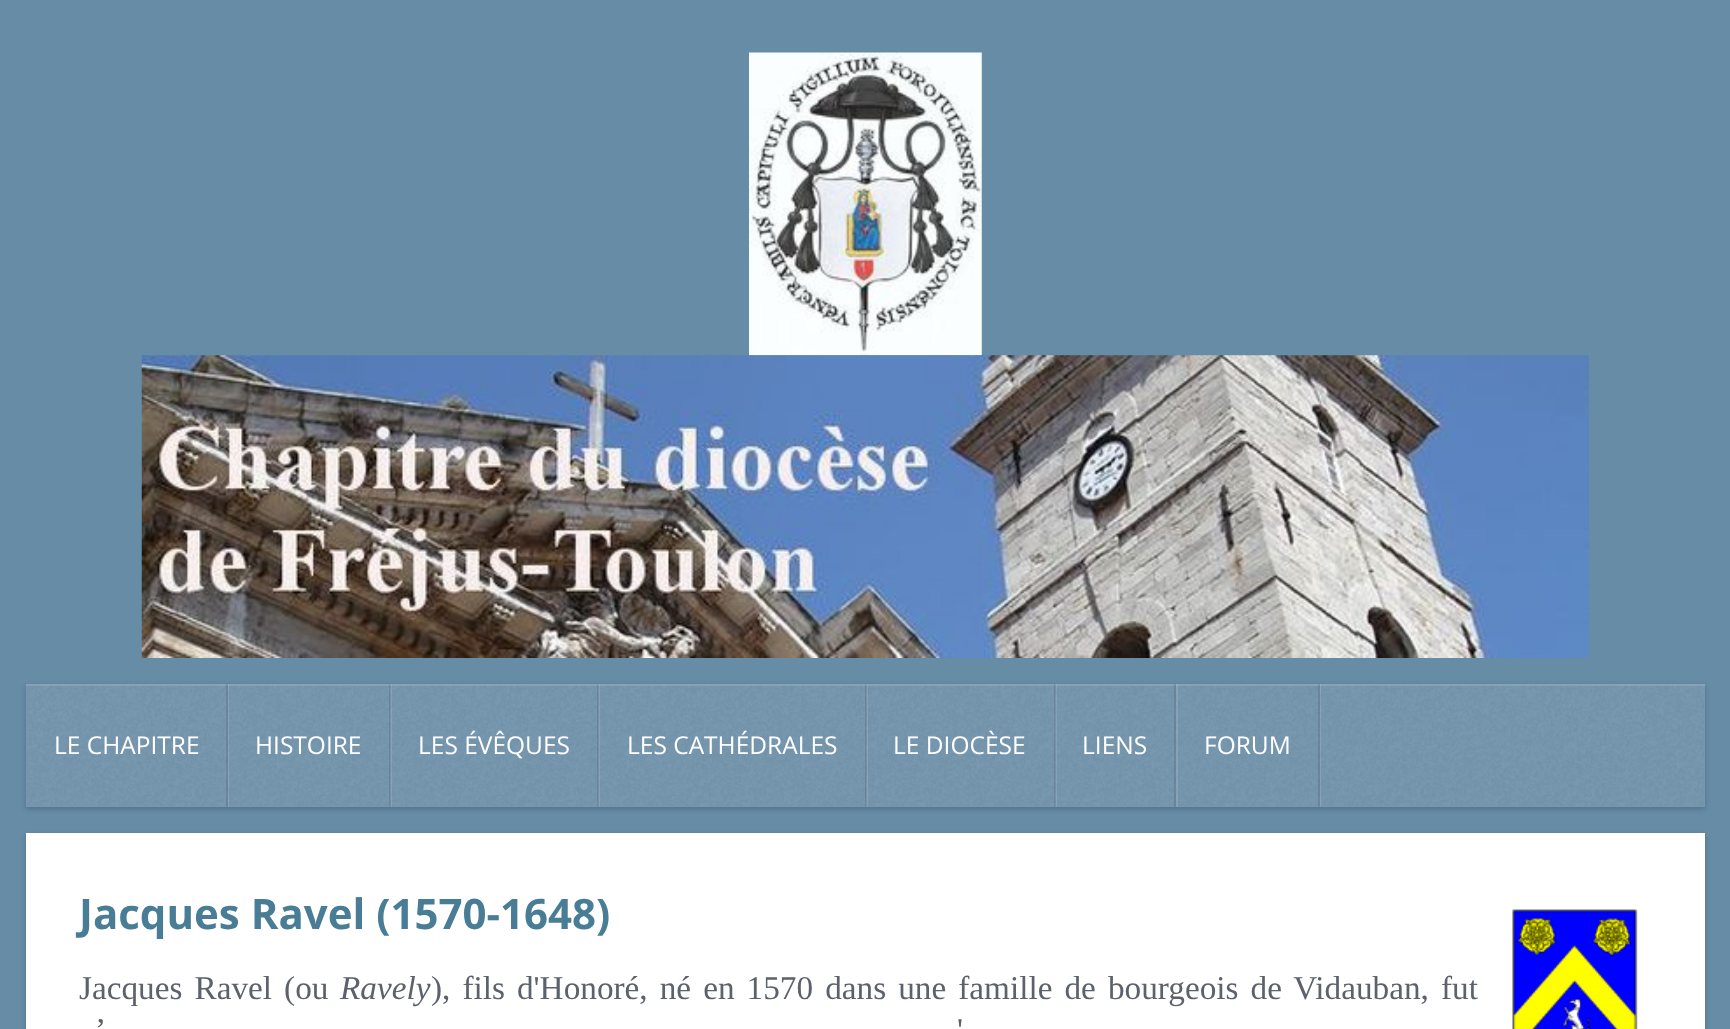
<!DOCTYPE html>
<meta charset="utf-8">
<style>body { margin: 0 } canvas { display: block }</style>
<canvas id="canvas" width="1730" height="1029"></canvas>
<script type="module">
  const canvas = document.getElementById("canvas");
  const g = canvas.getContext("2d");
  g.miterLimit = 4;
  g.fontKerning = "normal";
  function drawText(s, x, y, [font, color]) {
    g.font = font;
    g.fillStyle = color;
    g.fillText(s, x, y);
  }
  function fillBox(x, y, w, h, color) {
    g.fillStyle = color;
    g.fillRect(x, y, w, h);
  }
  async function drawPicture(src, x, y, w, h) {
    const img = new Image();
    img.src = src;
    await img.decode();
    g.drawImage(img, x, y, w, h);
  }

  const s1 = ["24.5px Open Sans", "#FFFFFF"];
  const s2 = ["bold 42px Open Sans", "#497C95"];
  const s3 = ["33.25px Liberation Serif", "#5C626B"];
  const s4 = ["italic 33.25px Liberation Serif", "#5C626B"];

  fillBox(0, 0, 1730, 1029, "#678CA6");
  await drawPicture("pic1.png", 749, 52, 233, 304);
  await drawPicture("pic2.png", 141, 355, 1448, 303);
  g.save();
  g.beginPath();
  g.moveTo(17, 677);
  g.lineTo(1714, 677);
  g.lineTo(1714, 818);
  g.lineTo(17, 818);
  g.closePath();
  g.moveTo(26, 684);
  g.lineTo(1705, 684);
  g.lineTo(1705, 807);
  g.lineTo(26, 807);
  g.closePath();
  g.clip("evenodd");
  g.fillStyle = "rgba(30, 50, 70, 0.3)";
  g.filter = "blur(2.5px)";
  g.beginPath();
  g.rect(26, 686, 1679, 123);
  g.fill();
  g.filter = "none";
  g.restore();
  fillBox(26, 684, 1679, 123, "rgba(255, 255, 255, 0.1)");
  await drawPicture("pic3.png", 27, 685, 1677, 121);
  fillBox(26, 684, 1679, 2, "rgba(255, 255, 255, 0.12)");
  g.beginPath();
  g.moveTo(28, 684);
  g.lineTo(228, 684);
  g.lineTo(228, 807);
  g.lineTo(28, 807);
  g.lineTo(229, 807);
  g.lineTo(229, 684);
  g.closePath();
  g.fill();
  fillBox(226, 684, 2, 123, "rgba(0, 0, 0, 0.1)");
  drawText("LE CHAPITRE", 54, 754, s1);
  g.fillStyle = "rgba(255, 255, 255, 0.12)";
  g.beginPath();
  g.moveTo(229, 684);
  g.lineTo(390, 684);
  g.lineTo(390, 807);
  g.lineTo(229, 807);
  g.lineTo(392, 807);
  g.lineTo(392, 684);
  g.closePath();
  g.fill();
  fillBox(389, 684, 2, 123, "rgba(0, 0, 0, 0.1)");
  drawText("HISTOIRE", 255, 754, s1);
  g.fillStyle = "rgba(255, 255, 255, 0.12)";
  g.beginPath();
  g.moveTo(392, 684);
  g.lineTo(598, 684);
  g.lineTo(598, 807);
  g.lineTo(392, 807);
  g.lineTo(600, 807);
  g.lineTo(600, 684);
  g.closePath();
  g.fill();
  fillBox(597, 684, 2, 123, "rgba(0, 0, 0, 0.1)");
  drawText("LES ÉVÊQUES", 418, 754, s1);
  g.fillStyle = "rgba(255, 255, 255, 0.12)";
  g.beginPath();
  g.moveTo(600, 684);
  g.lineTo(866, 684);
  g.lineTo(866, 807);
  g.lineTo(600, 807);
  g.lineTo(868, 807);
  g.lineTo(868, 684);
  g.closePath();
  g.fill();
  fillBox(865, 684, 2, 123, "rgba(0, 0, 0, 0.1)");
  drawText("LES CATHÉDRALES", 627, 754, s1);
  g.fillStyle = "rgba(255, 255, 255, 0.12)";
  g.beginPath();
  g.moveTo(868, 684);
  g.lineTo(1055, 684);
  g.lineTo(1055, 807);
  g.lineTo(868, 807);
  g.lineTo(1057, 807);
  g.lineTo(1057, 684);
  g.closePath();
  g.fill();
  fillBox(1054, 684, 2, 123, "rgba(0, 0, 0, 0.1)");
  drawText("LE DIOCÈSE", 893, 754, s1);
  g.fillStyle = "rgba(255, 255, 255, 0.12)";
  g.beginPath();
  g.moveTo(1057, 684);
  g.lineTo(1176, 684);
  g.lineTo(1176, 807);
  g.lineTo(1057, 807);
  g.lineTo(1178, 807);
  g.lineTo(1178, 684);
  g.closePath();
  g.fill();
  fillBox(1174, 684, 2, 123, "rgba(0, 0, 0, 0.1)");
  drawText("LIENS", 1082, 754, s1);
  g.fillStyle = "rgba(255, 255, 255, 0.12)";
  g.beginPath();
  g.moveTo(1178, 684);
  g.lineTo(1320, 684);
  g.lineTo(1320, 807);
  g.lineTo(1178, 807);
  g.lineTo(1321, 807);
  g.lineTo(1321, 684);
  g.closePath();
  g.fill();
  fillBox(1318, 684, 2, 123, "rgba(0, 0, 0, 0.1)");
  drawText("FORUM", 1204, 754, s1);
  g.fillStyle = "rgba(30, 50, 70, 0.3)";
  g.filter = "blur(2.5px)";
  g.beginPath();
  g.rect(26, 835, 1679, 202);
  g.fill();
  g.filter = "none";
  fillBox(26, 833, 1679, 196, "#FFFFFF");
  drawText("Jacques Ravel (1570-1648)", 79, 929, s2);
  await drawPicture("pic4.png", 1512, 909, 126, 120);
  g.wordSpacing = "3.75px";
  drawText("Jacques Ravel (ou", 79, 999, s3);
  g.wordSpacing = "0px";
  drawText("Ravely", 340, 999, s4);
  g.wordSpacing = "3.75px";
  drawText("), fils d'Honoré, né en 1570 dans une famille de bourgeois de Vidauban, fut", 431, 999, s3);
  g.wordSpacing = "4px";
  drawText("’", 95, 1041, s3);
  drawText("'", 957, 1041, s3);
</script>
